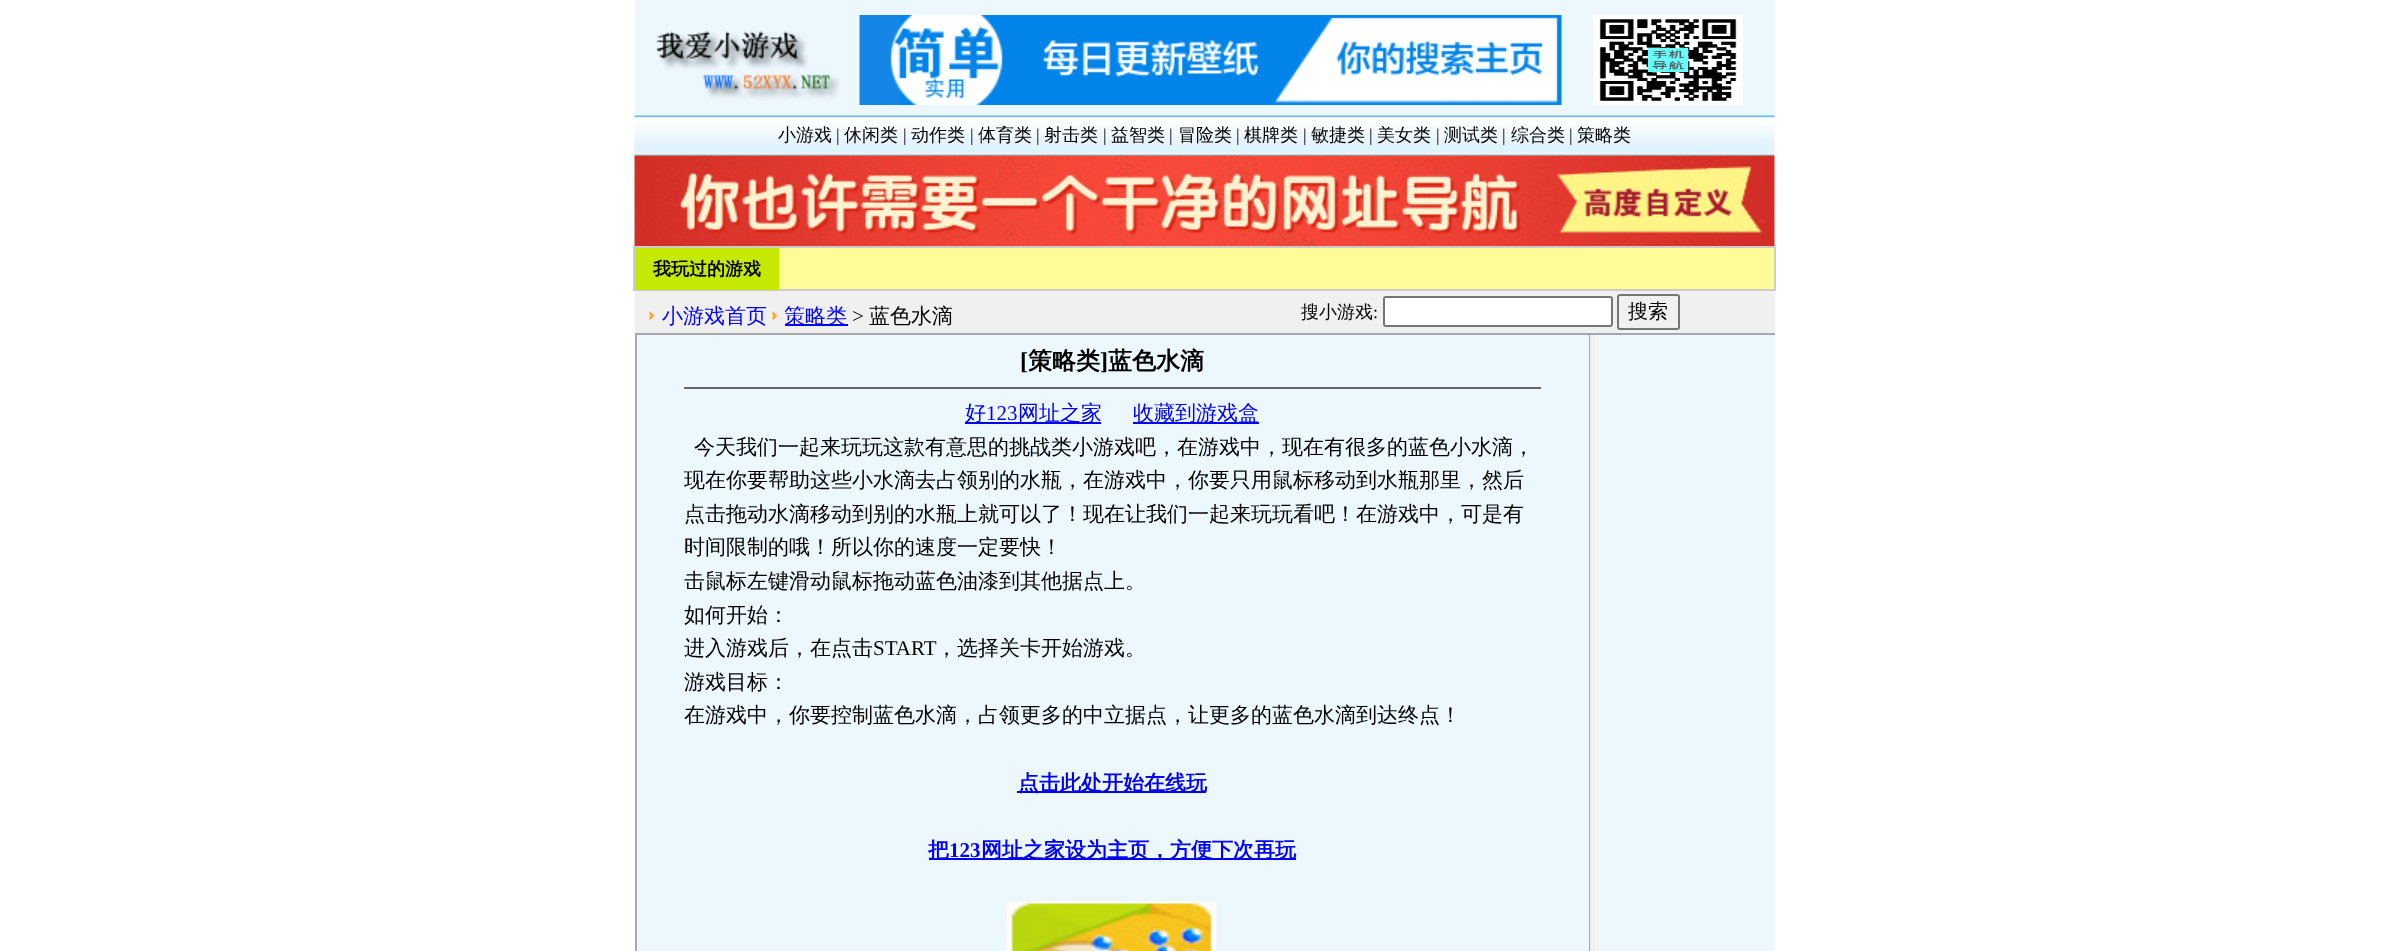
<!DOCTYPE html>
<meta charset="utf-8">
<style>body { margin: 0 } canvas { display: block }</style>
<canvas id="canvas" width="2408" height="951"></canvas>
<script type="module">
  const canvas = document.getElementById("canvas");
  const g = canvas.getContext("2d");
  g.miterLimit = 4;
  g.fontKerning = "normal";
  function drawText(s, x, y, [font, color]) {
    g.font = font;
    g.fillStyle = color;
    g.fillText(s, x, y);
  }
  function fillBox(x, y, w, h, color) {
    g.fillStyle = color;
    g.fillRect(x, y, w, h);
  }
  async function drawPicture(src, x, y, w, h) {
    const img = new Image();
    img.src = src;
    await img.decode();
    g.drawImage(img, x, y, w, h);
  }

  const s1 = ["500 18px WenQuanYi Zen Hei", "#000000"];
  const s2 = ["18px Liberation Serif", "#000000"];
  const s3 = ["bold 18px WenQuanYi Zen Hei", "#000000"];
  const s4 = ["500 21px WenQuanYi Zen Hei", "#0000FF"];
  const s5 = ["500 21px WenQuanYi Zen Hei", "#0000EE"];
  const s6 = ["21px Liberation Serif", "#000000"];
  const s7 = ["500 21px WenQuanYi Zen Hei", "#000000"];
  const s8 = ["500 20px WenQuanYi Zen Hei", "#000000"];
  const s9 = ["bold 24px Liberation Serif", "#000000"];
  const s10 = ["bold 24px WenQuanYi Zen Hei", "#000000"];
  const s11 = ["21px Liberation Serif", "#0000EE"];
  const s12 = ["bold 21px WenQuanYi Zen Hei", "#0000EE"];
  const s13 = ["bold 21px WenQuanYi Zen Hei", "#0000FF"];
  const s14 = ["bold 21px Liberation Serif", "#0000FF"];

  fillBox(0, 0, 2408, 951, "#FFFFFF");
  fillBox(635, 0, 1140, 15, "#EDF8FE");
  fillBox(840, 15, 935, 90, "#EDF8FE");
  await drawPicture("pic1.png", 634, 15, 206, 90);
  await drawPicture("pic2.png", 859, 15, 703, 90);
  await drawPicture("pic3.png", 1593, 15, 150, 90);
  fillBox(635, 105, 1140, 11, "#EDF8FE");
  await drawPicture("pic4.png", 634, 115, 1141, 41);
  drawText("小游戏", 778, 141, s1);
  drawText("|", 836, 141, s2);
  drawText("休闲类", 844, 141, s1);
  drawText("|", 903, 141, s2);
  drawText("动作类", 911, 141, s1);
  drawText("|", 970, 141, s2);
  drawText("体育类", 978, 141, s1);
  drawText("|", 1036, 141, s2);
  drawText("射击类", 1044, 141, s1);
  drawText("|", 1103, 141, s2);
  drawText("益智类", 1111, 141, s1);
  drawText("|", 1169, 141, s2);
  drawText("冒险类", 1178, 141, s1);
  drawText("|", 1236, 141, s2);
  drawText("棋牌类", 1244, 141, s1);
  drawText("|", 1303, 141, s2);
  drawText("敏捷类", 1311, 141, s1);
  drawText("|", 1369, 141, s2);
  drawText("美女类", 1377, 141, s1);
  drawText("|", 1436, 141, s2);
  drawText("测试类", 1444, 141, s1);
  drawText("|", 1502, 141, s2);
  drawText("综合类", 1511, 141, s1);
  drawText("|", 1569, 141, s2);
  drawText("策略类", 1577, 141, s1);
  await drawPicture("pic5.png", 634, 156, 1141, 90);
  fillBox(779, 248, 995, 41, "#FEFB99");
  g.strokeStyle = "#CCCCCC";
  g.lineWidth = 2;
  g.strokeRect(634, 247, 1141, 43);
  fillBox(635, 248, 144, 42, "#C5E900");
  drawText("我玩过的游戏", 653, 275, s3);
  fillBox(635, 291, 1140, 42, "#F0F0F0");
  await drawPicture("pic6.png", 649, 311, 6, 9);
  drawText("小游戏首页", 662, 323, s4);
  await drawPicture("pic7.png", 772, 311, 6, 9);
  fillBox(785, 324, 63, 2, "#0000EE");
  drawText("策略类", 784, 323, s5);
  drawText(">", 852, 323, s6);
  drawText("蓝色水滴", 869, 323, s7);
  drawText("搜小游戏", 1301, 318, s1);
  drawText(":", 1373, 318, s2);
  g.fillStyle = "#FFFFFF";
  g.beginPath();
  g.roundRect(1384, 297, 228, 29, 2);
  g.fill();
  g.strokeStyle = "#767676";
  g.stroke();
  g.beginPath();
  g.roundRect(1618, 295, 61, 34, 2);
  g.stroke();
  drawText("搜索", 1628, 318, s8);
  fillBox(635, 333, 1140, 2, "#A8A8A8");
  fillBox(637, 335, 1138, 616, "#EDF8FE");
  fillBox(635, 335, 2, 616, "#A8A8A8");
  drawText("[", 1020, 369, s9);
  drawText("策略类", 1028, 369, s10);
  drawText("]", 1100, 369, s9);
  drawText("蓝色水滴", 1108, 369, s10);
  fillBox(684, 387, 857, 2, "#666666");
  fillBox(965, 422, 136, 2, "#0000EE");
  drawText("好", 965, 420, s5);
  drawText("123", 986, 420, s11);
  drawText("网址之家", 1018, 420, s5);
  fillBox(1133, 422, 126, 2, "#0000EE");
  drawText("收藏到游戏盒", 1133, 420, s5);
  drawText("今天我们一起来玩玩这款有意思的挑战类小游戏吧，在游戏中，现在有很多的蓝色小水滴，", 694, 454, s7);
  drawText("现在你要帮助这些小水滴去占领别的水瓶，在游戏中，你要只用鼠标移动到水瓶那里，然后", 684, 487, s7);
  drawText("点击拖动水滴移动到别的水瓶上就可以了！现在让我们一起来玩玩看吧！在游戏中，可是有", 684, 521, s7);
  drawText("时间限制的哦！所以你的速度一定要快！", 684, 554, s7);
  drawText("击鼠标左键滑动鼠标拖动蓝色油漆到其他据点上。", 684, 588, s7);
  drawText("如何开始：", 684, 622, s7);
  drawText("进入游戏后，在点击", 684, 655, s7);
  drawText("START", 873, 655, s6);
  drawText("，选择关卡开始游戏。", 936, 655, s7);
  drawText("游戏目标：", 684, 689, s7);
  drawText("在游戏中，你要控制蓝色水滴，占领更多的中立据点，让更多的蓝色水滴到达终点！", 684, 722, s7);
  fillBox(1017, 791, 189, 2, "#0000EE");
  drawText("点击此处开始在线玩", 1018, 790, s12);
  fillBox(929, 858, 367, 2, "#0000EE");
  drawText("把", 928, 857, s13);
  drawText("123", 949, 857, s14);
  drawText("网址之家设为主页，方便下次再玩", 981, 857, s13);
  await drawPicture("pic8.png", 1006, 901, 211, 50);
  fillBox(1589, 335, 1, 616, "#A8A8A8");
  fillBox(1590, 335, 5, 616, "#F0F0F0");
</script>
